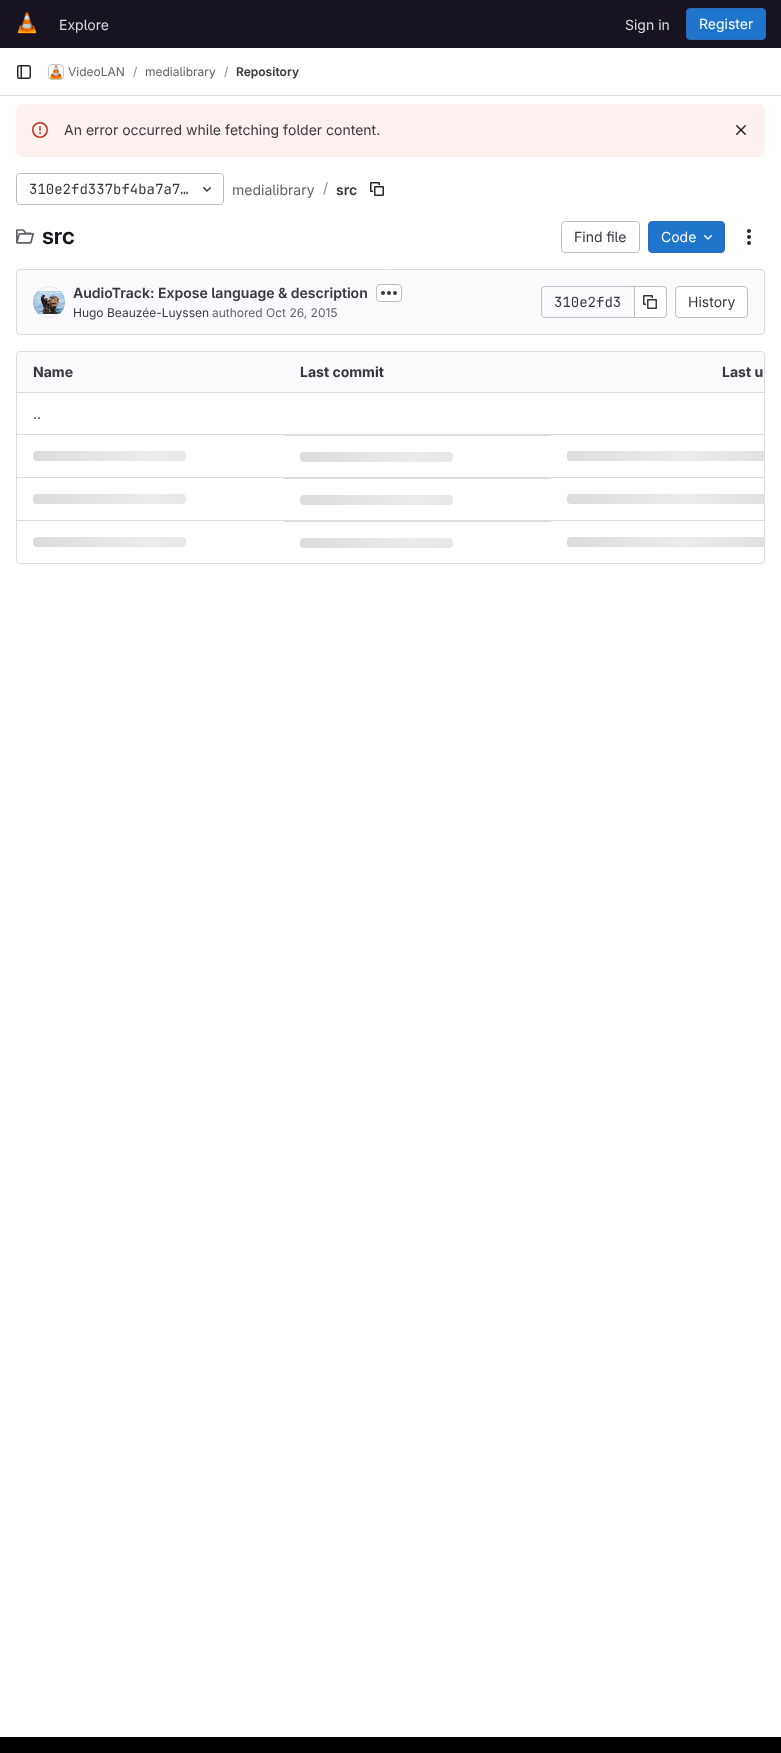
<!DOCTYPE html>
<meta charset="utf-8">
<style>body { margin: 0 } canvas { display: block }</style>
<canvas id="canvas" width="781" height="1753"></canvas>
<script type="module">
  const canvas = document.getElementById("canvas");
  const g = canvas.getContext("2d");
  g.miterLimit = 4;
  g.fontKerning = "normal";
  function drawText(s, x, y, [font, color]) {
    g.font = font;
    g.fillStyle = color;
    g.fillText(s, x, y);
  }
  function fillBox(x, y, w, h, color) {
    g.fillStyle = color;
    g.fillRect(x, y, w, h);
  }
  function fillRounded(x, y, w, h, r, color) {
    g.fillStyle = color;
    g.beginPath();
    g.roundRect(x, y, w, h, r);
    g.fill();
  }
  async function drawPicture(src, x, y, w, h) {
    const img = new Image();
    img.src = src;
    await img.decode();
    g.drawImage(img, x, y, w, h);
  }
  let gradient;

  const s1 = ["14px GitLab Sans", "#DCDCDE"];
  const s2 = ["14px GitLab Sans", "#FFFFFF"];
  const s3 = ["12px GitLab Sans", "#626168"];
  const s4 = ["12px GitLab Sans", "#89888D"];
  const s5 = ["600 12px GitLab Sans", "#3A383F"];
  const s6 = ["14px GitLab Sans", "#3A383F"];
  const s7 = ["14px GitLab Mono", "#3A383F"];
  const s8 = ["14px GitLab Sans", "#626168"];
  const s9 = ["14px GitLab Sans", "#89888D"];
  const s10 = ["600 14px GitLab Sans", "#3A383F"];
  const s11 = ["600 23px 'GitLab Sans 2'", "#18171D"];
  const s12 = ["12px GitLab Sans", "#3A383F"];
  const s13 = ["bold 14px GitLab Sans", "#3A383F"];

  fillBox(0, 0, 781, 1753, "#FFFFFF");
  fillBox(0, 0, 781, 48, "#171321");
  await drawPicture("pic1.png", 17, 12, 20, 23);
  drawText("Explore", 59, 30, s1);
  drawText("Sign in", 625, 30, s1);
  g.fillStyle = "#1F75CB";
  g.beginPath();
  g.roundRect(686.5, 8.5, 79, 31, 3.5);
  g.fill();
  g.strokeStyle = "#2F68B4";
  g.stroke();
  drawText("Register", 699, 29, s2);
  fillBox(0, 95, 781, 1, "#DCDCDE");
  await drawPicture("pic2.png", 17, 65, 14, 14);
  g.beginPath();
  g.roundRect(48.5, 64.5, 15, 15, 3.5);
  g.strokeStyle = "#DCDCDE";
  g.stroke();
  await drawPicture("pic3.png", 49, 65, 14, 14);
  g.beginPath();
  g.roundRect(48.5, 64.5, 15, 15, 3.5);
  g.strokeStyle = "rgba(5, 5, 6, 0.08)";
  g.stroke();
  drawText("VideoLAN", 68, 76, s3);
  drawText("/", 133, 76, s4);
  drawText("medialibrary", 145, 76, s3);
  drawText("/", 224, 76, s4);
  drawText("Repository", 236, 76, s5);
  fillRounded(16, 104, 749, 53, 8, "#FCF1EF");
  await drawPicture("pic4.png", 32, 122, 16, 16);
  drawText("An error occurred while fetching folder content.", 64, 135, s6);
  await drawPicture("pic5.png", 736, 125, 10, 10);
  g.beginPath();
  g.roundRect(16.5, 173.5, 207, 31, 3.5);
  g.strokeStyle = "#BFBFC3";
  g.stroke();
  drawText("310e2fd337bf4ba7a7…", 29, 194, s7);
  await drawPicture("pic6.png", 203, 187, 8, 5);
  drawText("medialibrary", 232, 195, s8);
  drawText("/", 323, 193, s9);
  drawText("src", 336, 195, s10);
  await drawPicture("pic7.png", 370, 182, 14, 14);
  await drawPicture("pic8.png", 16, 229, 18, 15);
  drawText("src", 42, 244, s11);
  g.beginPath();
  g.roundRect(561.5, 221.5, 78, 31, 3.5);
  g.stroke();
  drawText("Find file", 574, 242, s6);
  g.fillStyle = "#1F75CB";
  g.beginPath();
  g.roundRect(648.5, 221.5, 76, 31, 3.5);
  g.fill();
  g.strokeStyle = "#2F68B4";
  g.stroke();
  drawText("Code", 661, 242, s2);
  await drawPicture("pic9.png", 704, 235, 8, 5);
  await drawPicture("pic10.png", 747, 229, 4, 16);
  g.fillStyle = "#FBFAFD";
  g.beginPath();
  g.roundRect(16.5, 269.5, 748, 65, 3.5);
  g.fill();
  g.strokeStyle = "#DCDCDE";
  g.stroke();
  await drawPicture("pic11.png", 33, 291, 32, 23);
  g.beginPath();
  g.arc(49, 302, 15.5, 0, Math.PI * 2);
  g.strokeStyle = "rgba(5, 5, 6, 0.08)";
  g.stroke();
  drawText("AudioTrack: Expose language & description", 73, 298, s10);
  g.fillStyle = "#FFFFFF";
  g.beginPath();
  g.roundRect(376.5, 284.5, 25, 17, 3.5);
  g.fill();
  g.strokeStyle = "#BFBFC3";
  g.stroke();
  await drawPicture("pic12.png", 381, 291, 16, 4);
  drawText("Hugo Beauzée-Luyssen", 73, 317, s12);
  drawText("authored Oct 26, 2015", 212, 317, s3);
  g.fillStyle = "#BFBFC3";
  g.beginPath();
  g.moveTo(545, 286);
  g.lineTo(634, 286);
  g.lineTo(634, 318);
  g.lineTo(545, 318);
  g.bezierCurveTo(543, 318, 541, 316, 541, 314);
  g.lineTo(541, 290);
  g.bezierCurveTo(541, 288, 543, 286, 545, 286);
  g.closePath();
  g.moveTo(545, 287);
  g.lineTo(634, 287);
  g.lineTo(634, 317);
  g.lineTo(545, 317);
  g.bezierCurveTo(543, 317, 542, 316, 542, 314);
  g.lineTo(542, 290);
  g.bezierCurveTo(542, 288, 543, 287, 545, 287);
  g.closePath();
  g.fill("evenodd");
  drawText("310e2fd3", 554, 307, s7);
  g.fillStyle = "#FFFFFF";
  g.beginPath();
  g.roundRect(635, 287, 31, 30, [0, 3, 3, 0]);
  g.fill();
  g.fillStyle = "#BFBFC3";
  g.beginPath();
  g.moveTo(635, 286);
  g.lineTo(663, 286);
  g.bezierCurveTo(665, 286, 667, 288, 667, 290);
  g.lineTo(667, 314);
  g.bezierCurveTo(667, 316, 665, 318, 663, 318);
  g.lineTo(635, 318);
  g.closePath();
  g.moveTo(635, 287);
  g.lineTo(663, 287);
  g.bezierCurveTo(664.5, 287, 666, 288.5, 666, 290);
  g.lineTo(666, 314);
  g.bezierCurveTo(666, 315.5, 664.5, 317, 663, 317);
  g.lineTo(635, 317);
  g.closePath();
  g.fill("evenodd");
  fillBox(634, 286, 1, 32, "#BFBFC3");
  await drawPicture("pic13.png", 643, 295, 14, 14);
  g.fillStyle = "#FFFFFF";
  g.beginPath();
  g.roundRect(675.5, 286.5, 72, 31, 3.5);
  g.fill();
  g.stroke();
  drawText("History", 688, 307, s6);
  g.beginPath();
  g.roundRect(16.5, 351.5, 748, 212, 3.5);
  g.strokeStyle = "#DCDCDE";
  g.stroke();
  g.fillStyle = "#FBFAFD";
  g.beginPath();
  g.roundRect(17, 352, 267, 41, [3, 0, 0, 0]);
  g.fill();
  drawText("Name", 33, 377, s13);
  fillBox(284, 352, 267, 40, "#FBFAFD");
  drawText("Last commit", 300, 377, s13);
  g.fillStyle = "#FBFAFD";
  g.beginPath();
  g.roundRect(551, 352, 213, 41, [0, 3, 0, 0]);
  g.fill();
  drawText("Last u", 722, 377, s13);
  fillBox(17, 434, 747, 1, "#DCDCDE");
  fillBox(17, 392, 747, 1, "#DCDCDE");
  drawText("..", 33, 419, s6);
  fillBox(17, 477, 747, 1, "#DCDCDE");
  gradient = g.createLinearGradient(33, 451, 268, 451);
  gradient.addColorStop(0, "#DCDCDE");
  gradient.addColorStop(0.5, "#ECECEF");
  gradient.addColorStop(1, "#DCDCDE");
  g.fillStyle = gradient;
  g.beginPath();
  g.roundRect(33, 451, 153, 10, 4);
  g.fill();
  fillBox(284, 435, 267, 1, "#DCDCDE");
  gradient = g.createLinearGradient(300, 452, 535, 452);
  gradient.addColorStop(0, "#DCDCDE");
  gradient.addColorStop(0.5, "#ECECEF");
  gradient.addColorStop(1, "#DCDCDE");
  g.fillStyle = gradient;
  g.beginPath();
  g.roundRect(300, 452, 153, 10, 4);
  g.fill();
  gradient = g.createLinearGradient(567, 451, 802, 451);
  gradient.addColorStop(0, "#DCDCDE");
  gradient.addColorStop(0.5, "#ECECEF");
  gradient.addColorStop(1, "#DCDCDE");
  g.fillStyle = gradient;
  g.beginPath();
  g.roundRect(567, 451, 197, 10, [4, 0, 0, 4]);
  g.fill();
  fillBox(17, 520, 747, 1, "#DCDCDE");
  gradient = g.createLinearGradient(33, 494, 268, 494);
  gradient.addColorStop(0, "#DCDCDE");
  gradient.addColorStop(0.5, "#ECECEF");
  gradient.addColorStop(1, "#DCDCDE");
  g.fillStyle = gradient;
  g.beginPath();
  g.roundRect(33, 494, 153, 10, 4);
  g.fill();
  fillBox(284, 478, 267, 1, "#DCDCDE");
  gradient = g.createLinearGradient(300, 495, 535, 495);
  gradient.addColorStop(0, "#DCDCDE");
  gradient.addColorStop(0.5, "#ECECEF");
  gradient.addColorStop(1, "#DCDCDE");
  g.fillStyle = gradient;
  g.beginPath();
  g.roundRect(300, 495, 153, 10, 4);
  g.fill();
  gradient = g.createLinearGradient(567, 494, 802, 494);
  gradient.addColorStop(0, "#DCDCDE");
  gradient.addColorStop(0.5, "#ECECEF");
  gradient.addColorStop(1, "#DCDCDE");
  g.fillStyle = gradient;
  g.beginPath();
  g.roundRect(567, 494, 197, 10, [4, 0, 0, 4]);
  g.fill();
  gradient = g.createLinearGradient(33, 537, 268, 537);
  gradient.addColorStop(0, "#DCDCDE");
  gradient.addColorStop(0.5, "#ECECEF");
  gradient.addColorStop(1, "#DCDCDE");
  g.fillStyle = gradient;
  g.beginPath();
  g.roundRect(33, 537, 153, 10, 4);
  g.fill();
  fillBox(284, 521, 267, 1, "#DCDCDE");
  gradient = g.createLinearGradient(300, 538, 535, 538);
  gradient.addColorStop(0, "#DCDCDE");
  gradient.addColorStop(0.5, "#ECECEF");
  gradient.addColorStop(1, "#DCDCDE");
  g.fillStyle = gradient;
  g.beginPath();
  g.roundRect(300, 538, 153, 10, 4);
  g.fill();
  gradient = g.createLinearGradient(567, 537, 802, 537);
  gradient.addColorStop(0, "#DCDCDE");
  gradient.addColorStop(0.5, "#ECECEF");
  gradient.addColorStop(1, "#DCDCDE");
  g.fillStyle = gradient;
  g.beginPath();
  g.roundRect(567, 537, 197, 10, [4, 0, 0, 4]);
  g.fill();
  fillBox(0, 1737, 781, 16, "#000000");
</script>
